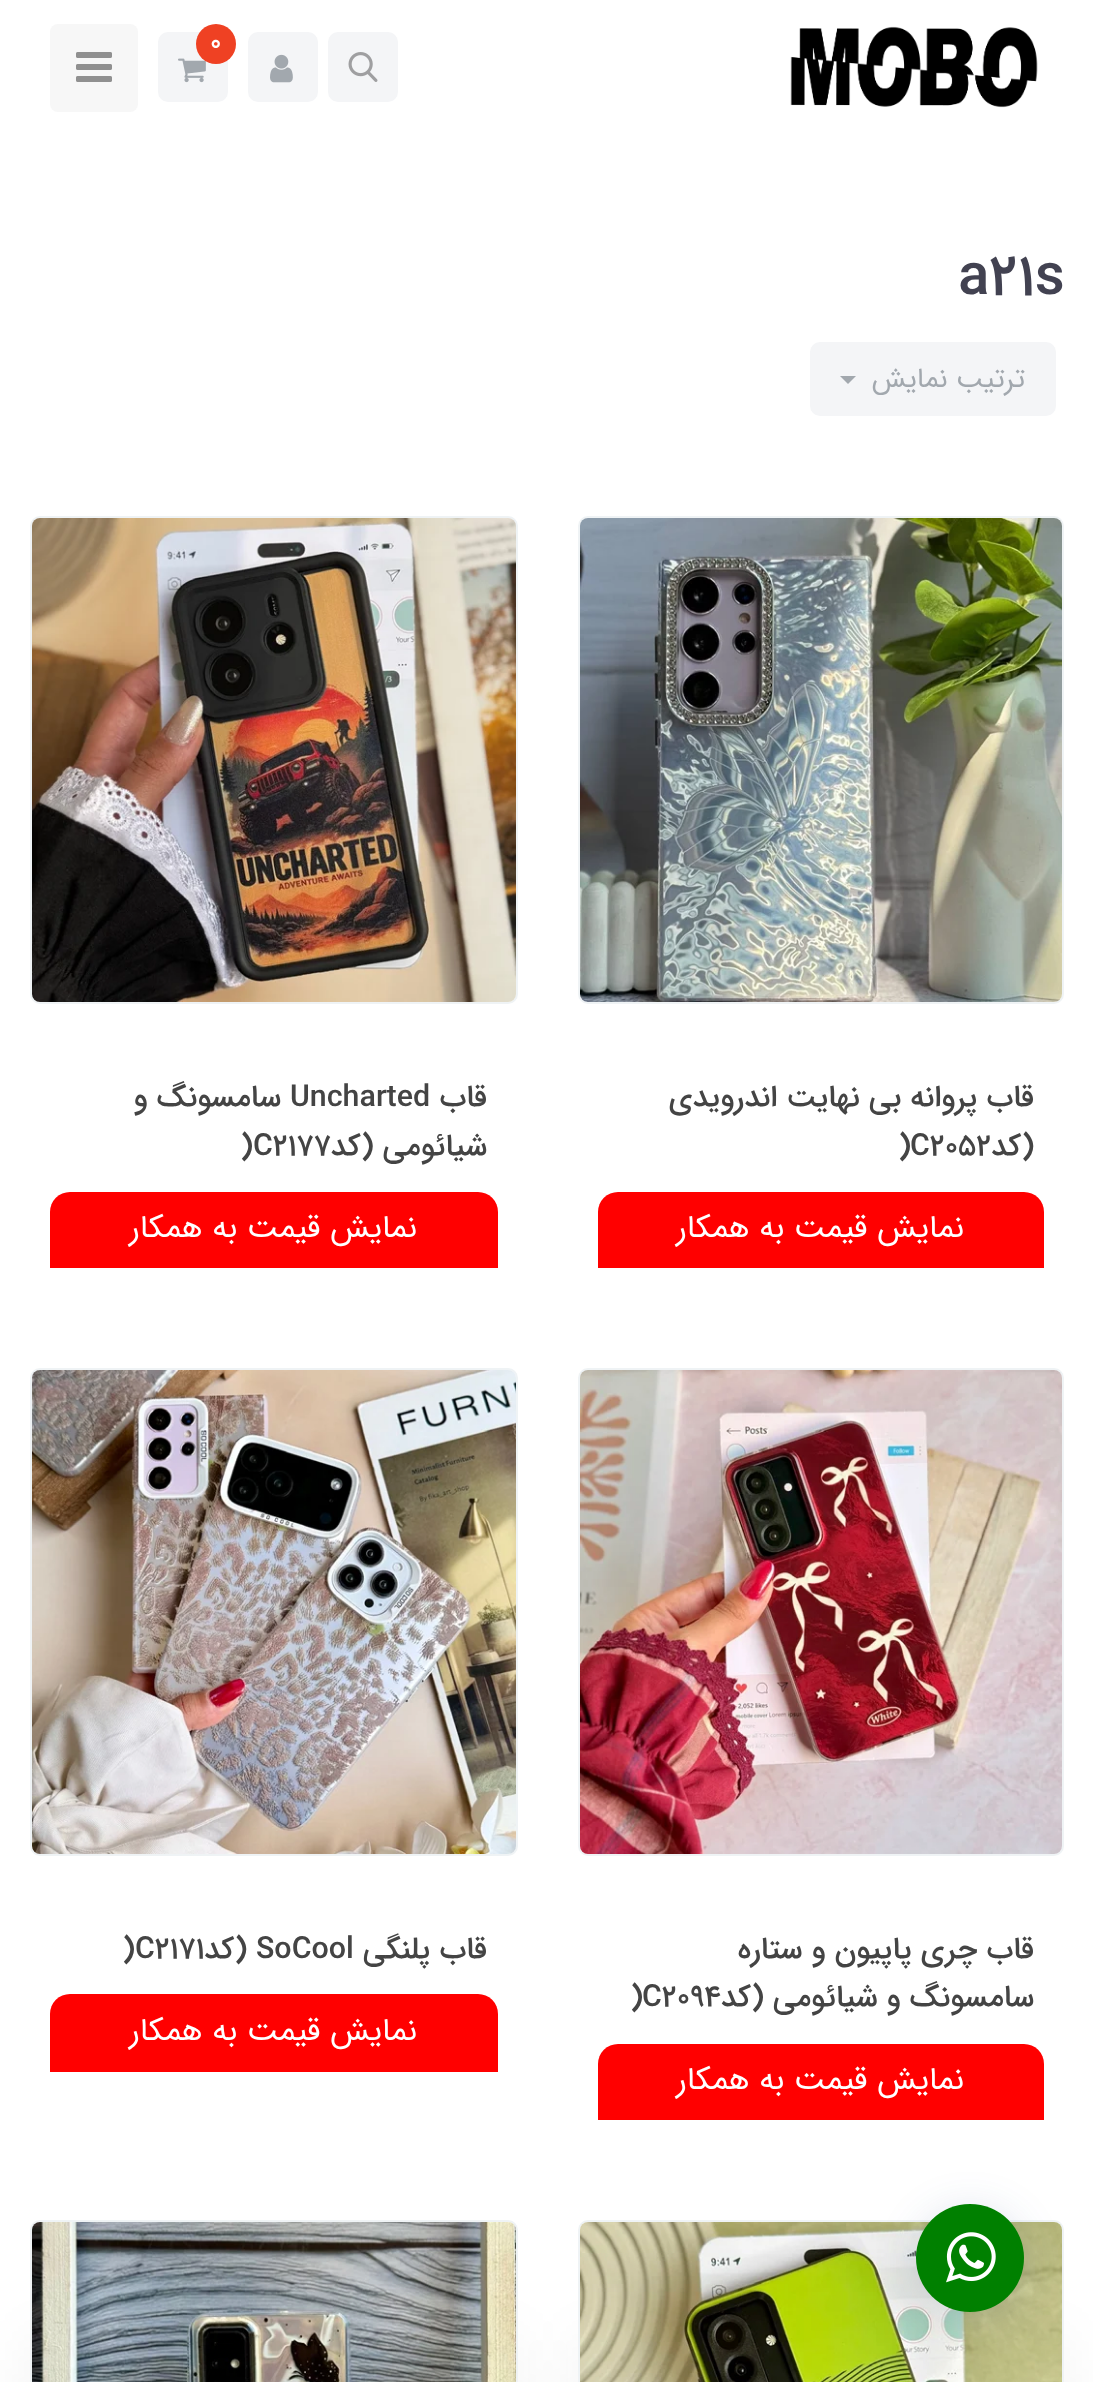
<!DOCTYPE html>
<meta charset="utf-8">
<style>body { margin: 0 } canvas { display: block }</style>
<canvas id="canvas" width="1093" height="2382"></canvas>
<script type="module">
  const canvas = document.getElementById("canvas");
  const g = canvas.getContext("2d");
  g.miterLimit = 4;
  g.fontKerning = "normal";
  function drawText(s, x, y, [font, color]) {
    g.font = font;
    g.fillStyle = color;
    g.fillText(s, x, y);
  }
  function fillBox(x, y, w, h, color) {
    g.fillStyle = color;
    g.fillRect(x, y, w, h);
  }
  function fillRounded(x, y, w, h, r, color) {
    g.fillStyle = color;
    g.beginPath();
    g.roundRect(x, y, w, h, r);
    g.fill();
  }
  async function drawPicture(src, x, y, w, h) {
    const img = new Image();
    img.src = src;
    await img.decode();
    g.drawImage(img, x, y, w, h);
  }

  const s1 = ["500 26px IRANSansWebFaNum", "#FFFFFF"];
  const s2 = ["500 58px IRANSansWebFaNum", "#424251"];
  const s3 = ["28px IRANSansWebFaNum", "#A2A8AE"];
  const s4 = ["500 30.4px IRANSansWebFaNum", "#444444"];
  const s5 = ["32px IRANSansWebFaNum", "#FFFFFF"];

  fillBox(0, 0, 1093, 2382, "#FFFFFF");
  await drawPicture("pic1.png", 790, 26, 248, 82);
  g.fillStyle = "#F4F5F7";
  g.beginPath();
  g.roundRect(329, 33, 68, 68, 9);
  g.fill();
  g.strokeStyle = "#F4F5F7";
  g.lineWidth = 2;
  g.stroke();
  await drawPicture("pic2.png", 348, 52, 30, 30);
  g.beginPath();
  g.roundRect(249, 33, 68, 68, 9);
  g.fill();
  g.stroke();
  await drawPicture("pic3.png", 270, 54, 23, 29);
  g.beginPath();
  g.roundRect(159, 33, 68, 68, 9);
  g.fill();
  g.stroke();
  await drawPicture("pic4.png", 178, 58, 28, 25);
  g.fillStyle = "#EF4123";
  g.beginPath();
  g.arc(216, 44, 20, 0, Math.PI * 2);
  g.fill();
  drawText("0", 210, 50, s1);
  fillRounded(50, 24, 88, 88, 8, "#F7F7F7");
  await drawPicture("pic5.png", 76, 52, 36, 30);
  drawText("a21s", 958, 294, s2);
  g.fillStyle = "#F4F5F7";
  g.beginPath();
  g.roundRect(811, 343, 244, 72, 9);
  g.fill();
  g.stroke();
  g.direction = "rtl";
  drawText("ترتیب نمایش", 1025, 387, s3);
  g.beginPath();
  g.moveTo(840, 376);
  g.lineTo(856, 376);
  g.lineTo(848, 384);
  g.closePath();
  g.fill();
  g.fillStyle = "#FCFCFD";
  g.beginPath();
  g.roundRect(579, 517, 484, 486, 9);
  g.fill();
  g.strokeStyle = "#EFF3F5";
  g.stroke();
  await drawPicture("pic6.png", 580, 518, 482, 484);
  drawText("قاب پروانه بی نهایت اندرویدی", 1034, 1106, s4);
  drawText("(کد", 1034, 1155, s4);
  g.direction = "ltr";
  drawText("C2052", 910, 1155, s4);
  drawText(")", 898, 1155, s4);
  g.fillStyle = "#FF0000";
  g.beginPath();
  g.roundRect(598, 1192, 446, 76, [20, 20, 0, 0]);
  g.fill();
  g.direction = "rtl";
  drawText("نمایش قیمت به همکار", 964, 1237, s5);
  g.fillStyle = "#FCFCFD";
  g.beginPath();
  g.roundRect(31, 517, 486, 486, 9);
  g.fill();
  g.stroke();
  await drawPicture("pic7.png", 32, 518, 484, 484);
  drawText("قاب", 487, 1106, s4);
  g.direction = "ltr";
  drawText("Uncharted", 290, 1106, s4);
  g.direction = "rtl";
  drawText("سامسونگ و", 281, 1106, s4);
  drawText("شیائومی (کد", 487, 1155, s4);
  g.direction = "ltr";
  drawText("C2177", 253, 1155, s4);
  drawText(")", 240, 1155, s4);
  g.fillStyle = "#FF0000";
  g.beginPath();
  g.roundRect(50, 1192, 448, 76, [20, 20, 0, 0]);
  g.fill();
  g.direction = "rtl";
  drawText("نمایش قیمت به همکار", 417, 1237, s5);
  g.fillStyle = "#FCFCFD";
  g.beginPath();
  g.roundRect(579, 1369, 484, 486, 9);
  g.fill();
  g.stroke();
  await drawPicture("pic8.png", 580, 1370, 482, 484);
  drawText("قاب چری پاپیون و ستاره", 1034, 1958, s4);
  drawText("سامسونگ و شیائومی (کد", 1034, 2006, s4);
  g.direction = "ltr";
  drawText("C2094", 642, 2006, s4);
  drawText(")", 630, 2006, s4);
  g.fillStyle = "#FF0000";
  g.beginPath();
  g.roundRect(598, 2044, 446, 76, [20, 20, 0, 0]);
  g.fill();
  g.direction = "rtl";
  drawText("نمایش قیمت به همکار", 964, 2089, s5);
  g.fillStyle = "#FCFCFD";
  g.beginPath();
  g.roundRect(31, 1369, 486, 486, 9);
  g.fill();
  g.stroke();
  await drawPicture("pic9.png", 32, 1370, 484, 484);
  drawText("قاب پلنگی", 487, 1958, s4);
  g.direction = "ltr";
  drawText("SoCool", 256, 1958, s4);
  g.direction = "rtl";
  drawText("(کد", 247, 1958, s4);
  g.direction = "ltr";
  drawText("C2171", 135, 1958, s4);
  drawText(")", 122, 1958, s4);
  g.fillStyle = "#FF0000";
  g.beginPath();
  g.roundRect(50, 1994, 448, 78, [20, 20, 0, 0]);
  g.fill();
  g.direction = "rtl";
  drawText("نمایش قیمت به همکار", 417, 2040, s5);
  g.fillStyle = "rgba(0, 0, 0, 0.05)";
  g.filter = "blur(30px)";
  g.beginPath();
  g.roundRect(578, 2340, 486, 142, 10);
  g.fill();
  g.filter = "none";
  g.beginPath();
  g.roundRect(579, 2221, 484, 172, 9);
  g.stroke();
  await drawPicture("pic10.png", 580, 2222, 482, 160);
  g.filter = "blur(30px)";
  g.beginPath();
  g.roundRect(30, 2340, 488, 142, 10);
  g.fill();
  g.filter = "none";
  g.beginPath();
  g.roundRect(31, 2221, 486, 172, 9);
  g.stroke();
  await drawPicture("pic11.png", 32, 2222, 484, 160);
  g.fillStyle = "rgba(25, 63, 125, 0.15)";
  g.filter = "blur(20px)";
  g.beginPath();
  g.roundRect(916, 2210, 108, 108, 54);
  g.fill();
  g.filter = "none";
  g.fillStyle = "#008000";
  g.beginPath();
  g.arc(970, 2258, 54, 0, Math.PI * 2);
  g.fill();
  await drawPicture("pic12.png", 946, 2232, 50, 51);
</script>
